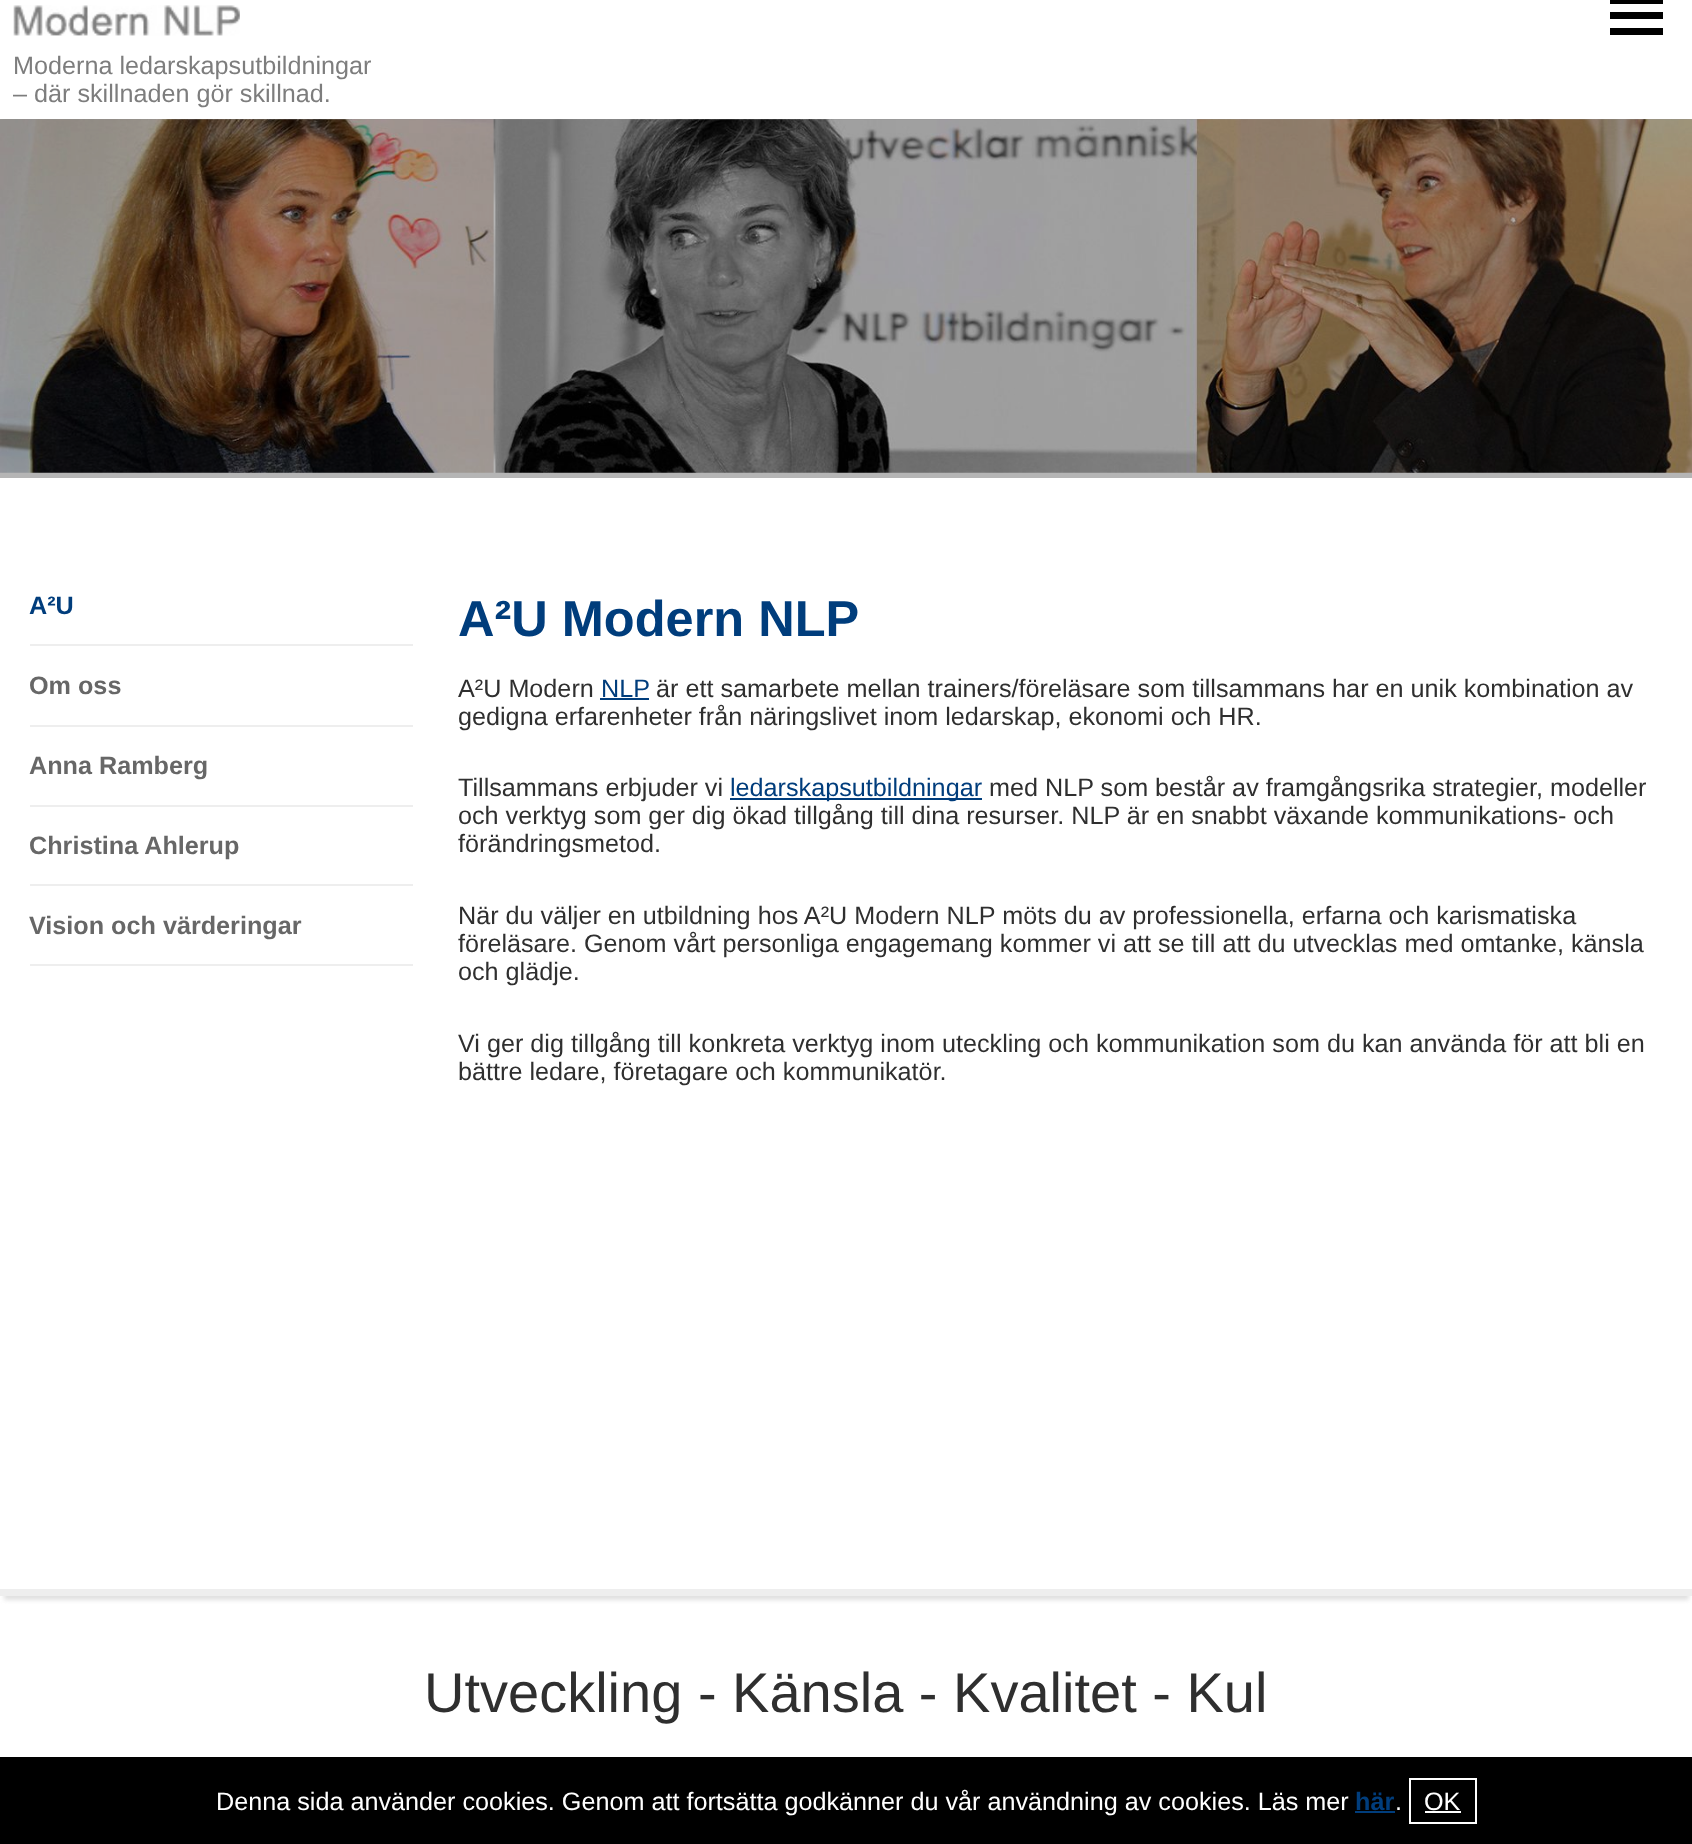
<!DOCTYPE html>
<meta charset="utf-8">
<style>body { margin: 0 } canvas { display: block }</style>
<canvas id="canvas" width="1692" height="1844"></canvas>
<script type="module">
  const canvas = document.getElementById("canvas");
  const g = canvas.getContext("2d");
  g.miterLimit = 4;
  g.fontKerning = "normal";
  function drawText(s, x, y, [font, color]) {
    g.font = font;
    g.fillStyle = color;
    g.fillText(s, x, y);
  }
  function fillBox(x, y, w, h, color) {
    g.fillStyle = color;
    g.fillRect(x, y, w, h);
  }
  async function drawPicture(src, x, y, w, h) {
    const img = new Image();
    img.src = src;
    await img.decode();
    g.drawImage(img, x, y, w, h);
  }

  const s1 = ["25.2px Liberation Sans", "#7D7D7D"];
  const s2 = ["bold 25.2px Liberation Sans", "#003D7C"];
  const s3 = ["bold 25.2px Liberation Sans", "#676767"];
  const s4 = ["bold 50.5px Liberation Sans", "#003D7C"];
  const s5 = ["25.2px Liberation Sans", "#2F2F2F"];
  const s6 = ["25.2px Liberation Sans", "#003D7C"];
  const s7 = ["56px Liberation Sans", "#2F2F2F"];
  const s8 = ["25.2px Liberation Sans", "#FFFFFF"];

  fillBox(0, 0, 1692, 1844, "#FFFFFF");
  fillBox(0, 119, 1692, 359, "#B5B5B5");
  g.save();
  g.beginPath();
  g.rect(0, 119, 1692, 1);
  g.clip();
  g.fillStyle = "rgba(0, 0, 0, 0.2)";
  g.filter = "blur(2.5px)";
  g.beginPath();
  g.rect(0, -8, 1692, 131);
  g.fill();
  g.filter = "none";
  g.restore();
  fillBox(1610, 0, 53, 4, "#000000");
  fillBox(1610, 12, 53, 7, "#000000");
  fillBox(1610, 28, 53, 7, "#000000");
  await drawPicture("pic1.png", 13, 5, 227, 31);
  drawText("Moderna ledarskapsutbildningar", 13, 74, s1);
  drawText("– där skillnaden gör skillnad.", 13, 102, s1);
  g.save();
  g.beginPath();
  g.rect(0, 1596, 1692, 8);
  g.clip();
  g.fillStyle = "#E0E0E0";
  g.filter = "blur(2px)";
  g.beginPath();
  g.rect(4, 130, 1685, 1470);
  g.fill();
  g.filter = "none";
  g.restore();
  fillBox(0, 1589, 1692, 7, "#EEEEEE");
  await drawPicture("pic2.png", 0, 119, 1692, 354);
  fillBox(30, 644, 383, 2, "#EEEEEE");
  drawText("A²U", 29, 614, s2);
  fillBox(30, 725, 383, 2, "#EEEEEE");
  drawText("Om oss", 29, 694, s3);
  fillBox(30, 805, 383, 2, "#EEEEEE");
  drawText("Anna Ramberg", 29, 774, s3);
  fillBox(30, 884, 383, 2, "#EEEEEE");
  drawText("Christina Ahlerup", 29, 854, s3);
  fillBox(30, 964, 383, 2, "#EEEEEE");
  drawText("Vision och värderingar", 29, 934, s3);
  drawText("A²U Modern NLP", 458, 636, s4);
  drawText("A²U Modern", 458, 697, s5);
  drawText("NLP", 601, 697, s6);
  fillBox(600, 698, 49, 2, "#003D7C");
  drawText("är ett samarbete mellan trainers/föreläsare som tillsammans har en unik kombination av", 656, 697, s5);
  drawText("gedigna erfarenheter från näringslivet inom ledarskap, ekonomi och HR.", 458, 725, s5);
  drawText("Tillsammans erbjuder vi", 458, 796, s5);
  fillBox(730, 798, 252, 2, "#003D7C");
  drawText("ledarskapsutbildningar", 730, 796, s6);
  drawText("med NLP som består av framgångsrika strategier, modeller", 989, 796, s5);
  drawText("och verktyg som ger dig ökad tillgång till dina resurser. NLP är en snabbt växande kommunikations- och", 458, 824, s5);
  drawText("förändringsmetod.", 458, 852, s5);
  drawText("När du väljer en utbildning hos A²U Modern NLP möts du av professionella, erfarna och karismatiska", 458, 924, s5);
  drawText("föreläsare. Genom vårt personliga engagemang kommer vi att se till att du utvecklas med omtanke, känsla", 458, 952, s5);
  drawText("och glädje.", 458, 980, s5);
  drawText("Vi ger dig tillgång till konkreta verktyg inom uteckling och kommunikation som du kan använda för att bli en", 458, 1052, s5);
  drawText("bättre ledare, företagare och kommunikatör.", 458, 1080, s5);
  drawText("Utveckling - Känsla - Kvalitet - Kul", 424, 1712, s7);
  fillBox(0, 1757, 1692, 87, "#000000");
  drawText("Denna sida använder cookies. Genom att fortsätta godkänner du vår användning av cookies. Läs mer", 216, 1810, s8);
  drawText("här", 1355, 1810, s2);
  fillBox(1355, 1811, 40, 2, "#003D7C");
  drawText(".", 1395, 1810, s8);
  g.strokeStyle = "#FFFFFF";
  g.lineWidth = 2;
  g.strokeRect(1410, 1779, 66, 44);
  drawText("OK", 1424, 1810, s8);
  fillBox(1425, 1811, 36, 2, "#FFFFFF");
</script>
